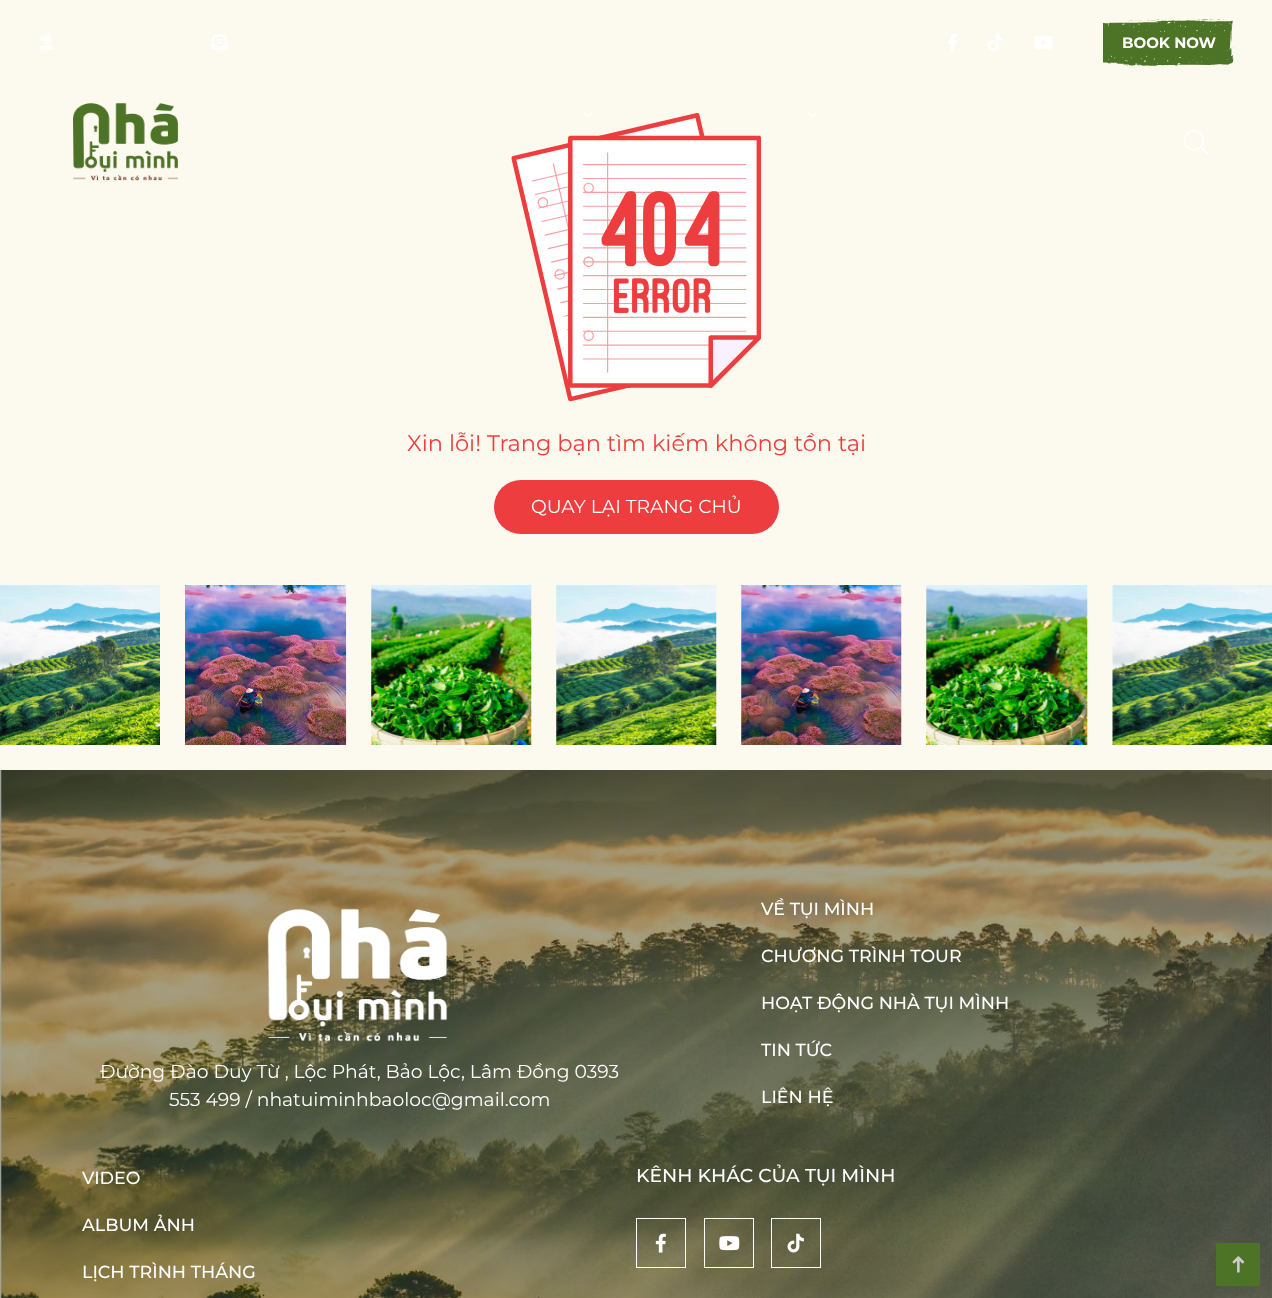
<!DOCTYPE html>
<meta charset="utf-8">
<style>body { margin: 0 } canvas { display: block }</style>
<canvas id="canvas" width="1272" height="1298"></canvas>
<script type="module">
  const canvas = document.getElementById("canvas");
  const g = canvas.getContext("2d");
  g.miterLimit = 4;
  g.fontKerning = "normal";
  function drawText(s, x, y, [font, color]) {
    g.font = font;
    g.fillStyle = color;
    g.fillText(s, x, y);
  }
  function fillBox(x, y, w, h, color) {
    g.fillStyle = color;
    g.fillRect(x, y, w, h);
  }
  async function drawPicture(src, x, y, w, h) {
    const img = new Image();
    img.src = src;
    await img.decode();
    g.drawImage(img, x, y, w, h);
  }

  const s1 = ["bold 15px Montserrat", "#FFFFFF"];
  const s2 = ["22.5px Montserrat", "#ED3D3F"];
  const s3 = ["18.75px Montserrat", "#FFFFFF"];
  const s4 = ["500 17.5px Montserrat", "#FFFFFF"];
  const s5 = ["500 18.75px Montserrat", "#FFFFFF"];

  fillBox(0, 0, 1272, 1298, "#FCFAEE");
  fillBox(0, 85, 1272, 1, "#FCFBF1");
  await drawPicture("pic1.png", 39, 34, 14, 16);
  await drawPicture("pic2.png", 211, 34, 17, 16);
  await drawPicture("pic3.png", 948, 34, 10, 18);
  await drawPicture("pic4.png", 987, 33, 16, 18);
  await drawPicture("pic5.png", 1034, 36, 19, 13);
  await drawPicture("pic6.png", 1103, 19, 131, 47);
  drawText("BOOK NOW", 1122, 48, s1);
  await drawPicture("pic7.png", 73, 102, 105, 79);
  await drawPicture("pic10.png", 511, 113, 250, 288);
  await drawPicture("pic8.png", 583, 112, 9, 6);
  await drawPicture("pic8.png", 808, 112, 9, 6);
  await drawPicture("pic9.png", 1184, 130, 25, 25);
  drawText("Xin lỗi! Trang bạn tìm kiếm không tồn tại", 407, 451, s2);
  g.beginPath();
  g.roundRect(493.5, 479.5, 286, 55, 27.5);
  g.fill();
  g.strokeStyle = "#FFFFFF";
  g.stroke();
  drawText("QUAY LẠI TRANG CHỦ", 531, 513, s3);
  await drawPicture("pic11.png", 0, 585, 160, 160);
  await drawPicture("pic12.png", 185, 585, 162, 160);
  await drawPicture("pic13.png", 371, 585, 161, 160);
  await drawPicture("pic14.png", 556, 585, 161, 160);
  await drawPicture("pic15.png", 741, 585, 161, 160);
  await drawPicture("pic16.png", 926, 585, 162, 160);
  await drawPicture("pic17.png", 1112, 585, 160, 160);
  await drawPicture("pic18.png", 0, 770, 1272, 528);
  await drawPicture("pic19.png", 267, 908, 181, 134);
  drawText("Đường Đào Duy Từ , Lộc Phát, Bảo Lộc, Lâm Đồng 0393", 100, 1078, s3);
  drawText("553 499 / nhatuiminhbaoloc@gmail.com", 169, 1106, s3);
  drawText("VỀ TỤI MÌNH", 761, 915, s4);
  drawText("CHƯƠNG TRÌNH TOUR", 761, 962, s4);
  drawText("HOẠT ĐỘNG NHÀ TỤI MÌNH", 761, 1009, s4);
  drawText("TIN TỨC", 761, 1056, s4);
  drawText("LIÊN HỆ", 761, 1103, s4);
  drawText("VIDEO", 82, 1184, s4);
  drawText("ALBUM ẢNH", 82, 1231, s4);
  drawText("LỊCH TRÌNH THÁNG", 82, 1278, s4);
  drawText("KÊNH KHÁC CỦA TỤI MÌNH", 636, 1182, s5);
  g.strokeRect(636.5, 1218.5, 49, 49);
  await drawPicture("pic20.png", 655, 1233, 11, 20);
  g.strokeRect(704.5, 1218.5, 49, 49);
  await drawPicture("pic21.png", 719, 1236, 21, 15);
  g.strokeRect(771.5, 1218.5, 49, 49);
  await drawPicture("pic22.png", 787, 1233, 17, 20);
  fillBox(1216, 1243, 44, 43, "#4D7327");
  await drawPicture("pic23.png", 1232, 1256, 13, 17);
</script>
